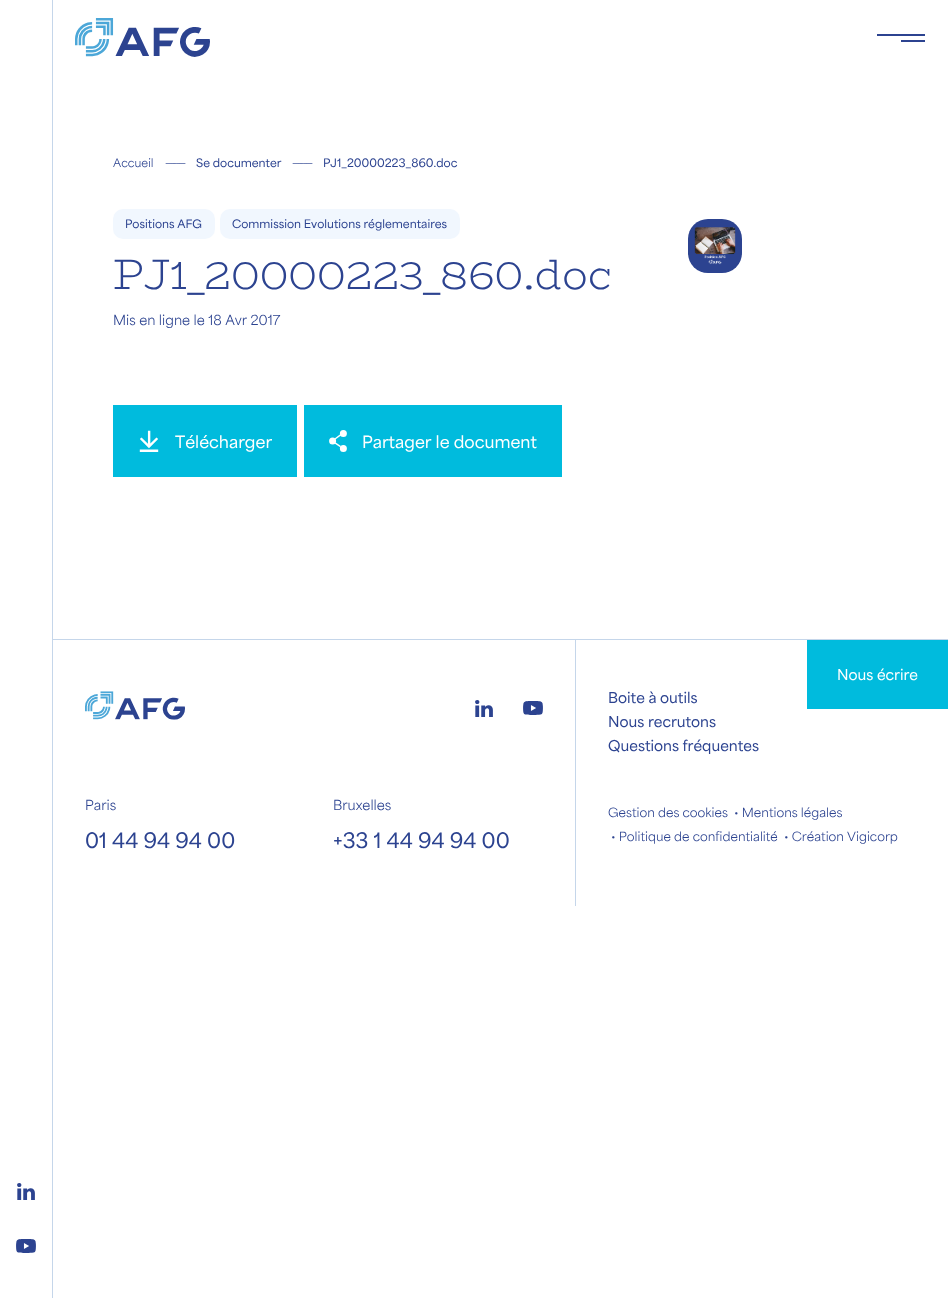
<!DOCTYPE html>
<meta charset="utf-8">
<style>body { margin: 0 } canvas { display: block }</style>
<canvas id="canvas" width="948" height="1298"></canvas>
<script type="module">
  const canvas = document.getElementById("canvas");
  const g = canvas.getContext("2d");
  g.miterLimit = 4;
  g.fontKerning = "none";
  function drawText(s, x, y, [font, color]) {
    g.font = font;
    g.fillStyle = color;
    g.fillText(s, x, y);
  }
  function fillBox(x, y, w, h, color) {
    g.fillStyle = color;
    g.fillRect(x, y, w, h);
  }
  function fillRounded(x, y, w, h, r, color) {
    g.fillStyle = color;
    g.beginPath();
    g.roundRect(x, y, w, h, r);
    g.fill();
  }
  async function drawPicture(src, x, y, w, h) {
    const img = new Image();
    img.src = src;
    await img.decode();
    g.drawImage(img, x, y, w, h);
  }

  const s1 = ["11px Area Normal", "#2C4390"];
  const s2 = ["600 11px Area Normal", "#2C4390"];
  const s3 = ["300 42.7px BioRhyme", "#2C4390"];
  const s4 = ["13px Area Normal", "#2C4390"];
  const s5 = ["600 16px Area Normal", "#FFFFFF"];
  const s6 = ["600 20px Area Normal", "#2C4390"];
  const s7 = ["600 14px Area Normal", "#FFFFFF"];
  const s8 = ["600 14px Area Normal", "#2C4390"];
  const s9 = ["12px Area Normal", "#2C4390"];

  fillBox(0, 0, 948, 1298, "#FFFFFF");
  await drawPicture("pic1.png", 75, 18, 135, 39);
  fillBox(877, 34, 48, 2, "#2C4390");
  fillBox(901, 40, 24, 2, "#2C4390");
  fillBox(52, 0, 1, 1298, "#C5D6EA");
  await drawPicture("pic2.png", 17, 1183, 18, 17);
  await drawPicture("pic3.png", 16, 1239, 20, 14);
  drawText("Accueil", 113, 167, s1);
  g.letterSpacing = "-1.5px";
  drawText("-------", 165, 167, s1);
  g.letterSpacing = "0px";
  drawText("Se documenter", 196, 167, s2);
  g.letterSpacing = "-1.5px";
  drawText("-------", 292, 167, s1);
  g.letterSpacing = "0px";
  drawText("PJ1_20000223_860.doc", 323, 167, s2);
  fillRounded(113, 209, 102, 30, 10, "#F1F7FE");
  drawText("Positions AFG", 125, 228, s2);
  fillRounded(220, 209, 240, 30, 10, "#F1F7FE");
  drawText("Commission Evolutions réglementaires", 232, 228, s2);
  drawText("PJ1_20000223_860.doc", 113, 289, s3);
  drawText("Mis en ligne le 18 Avr 2017", 113, 325, s4);
  await drawPicture("pic4.png", 688, 219, 54, 54);
  fillBox(113, 405, 184, 72, "#00BBDD");
  await drawPicture("pic5.png", 139, 430, 20, 22);
  drawText("Télécharger", 175, 448, s5);
  fillBox(304, 405, 258, 72, "#00BBDD");
  await drawPicture("pic6.png", 329, 430, 18, 22);
  drawText("Partager le document", 362, 448, s5);
  fillBox(53, 639, 895, 1, "#C5D6EA");
  await drawPicture("pic7.png", 85, 691, 100, 29);
  await drawPicture("pic2.png", 475, 700, 18, 17);
  await drawPicture("pic3.png", 523, 701, 20, 14);
  drawText("Paris", 85, 810, s4);
  drawText("01 44 94 94 00", 85, 848, s6);
  drawText("Bruxelles", 333, 810, s4);
  drawText("+33 1 44 94 94 00", 333, 848, s6);
  fillBox(575, 640, 1, 266, "#C5D6EA");
  fillBox(807, 640, 141, 69, "#00BBDD");
  drawText("Nous écrire", 837, 680, s7);
  drawText("Boite à outils", 608, 703, s8);
  drawText("Nous recrutons", 608, 727, s8);
  drawText("Questions fréquentes", 608, 751, s8);
  drawText("Gestion des cookies", 608, 817, s9);
  drawText("• Mentions légales", 734, 817, s9);
  drawText("• Politique de confidentialité", 611, 841, s9);
  drawText("• Création Vigicorp", 784, 841, s9);
</script>
